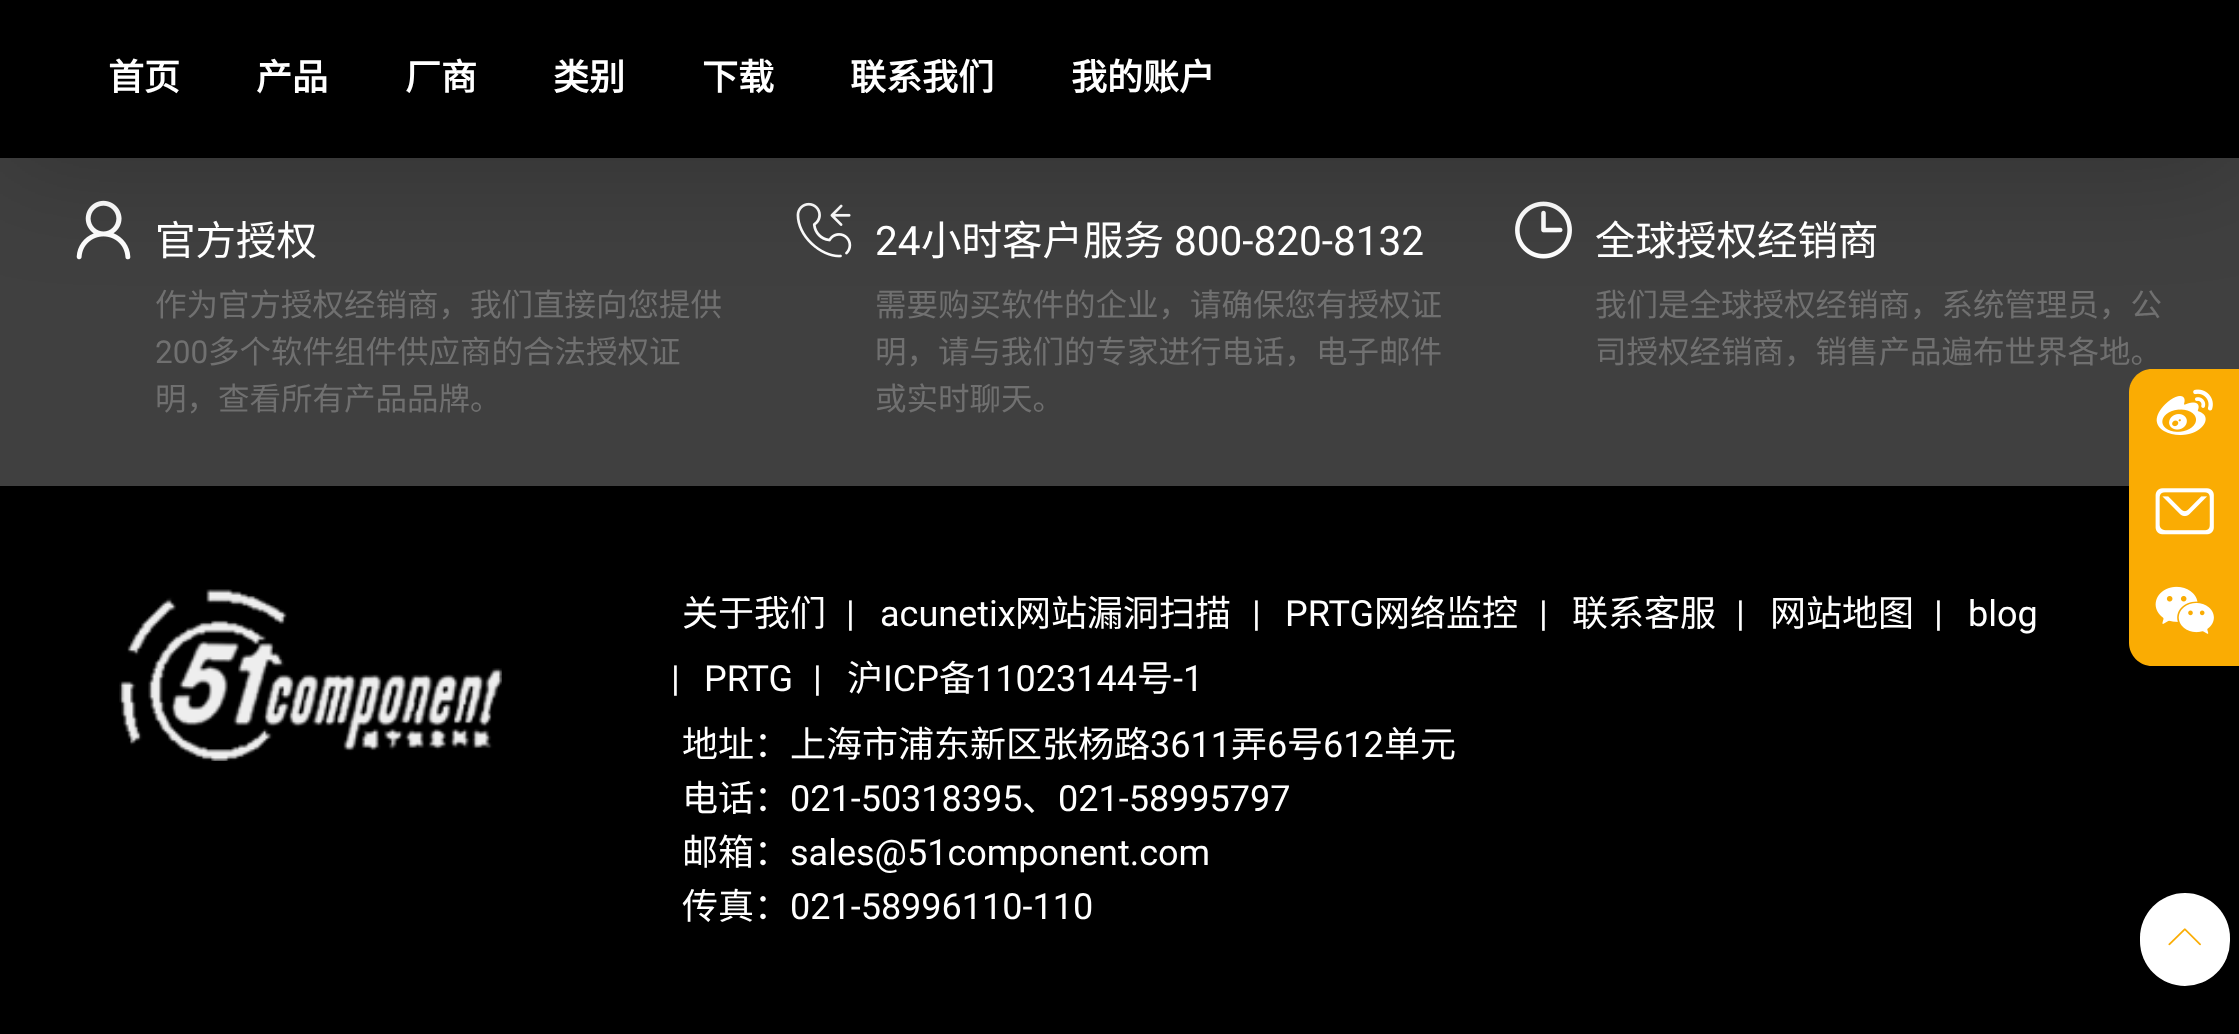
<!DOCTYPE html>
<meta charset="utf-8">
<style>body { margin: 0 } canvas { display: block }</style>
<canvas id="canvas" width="2239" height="1034"></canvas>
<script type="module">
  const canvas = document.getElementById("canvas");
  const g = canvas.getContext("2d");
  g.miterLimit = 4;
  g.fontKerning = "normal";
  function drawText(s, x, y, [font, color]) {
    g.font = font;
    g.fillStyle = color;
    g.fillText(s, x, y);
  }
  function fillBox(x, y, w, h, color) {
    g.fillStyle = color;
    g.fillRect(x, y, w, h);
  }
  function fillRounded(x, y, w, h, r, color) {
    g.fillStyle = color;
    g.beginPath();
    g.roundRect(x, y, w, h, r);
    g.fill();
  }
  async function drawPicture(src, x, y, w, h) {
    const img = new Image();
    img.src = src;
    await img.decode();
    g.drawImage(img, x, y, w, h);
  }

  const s1 = ["bold 36px Noto Sans CJK SC", "#FFFFFF"];
  const s2 = ["40.5px Noto Sans CJK SC", "#FFFFFF"];
  const s3 = ["31.5px Noto Sans CJK SC", "#707070"];
  const s4 = ["31.5px Roboto", "#707070"];
  const s5 = ["40.5px Roboto", "#FFFFFF"];
  const s6 = ["36px Noto Sans CJK SC", "#FFFFFF"];
  const s7 = ["36px Roboto", "#FFFFFF"];

  fillBox(0, 0, 2239, 1034, "#000000");
  fillBox(0, 158, 2239, 328, "#404040");
  await drawPicture("pic1.png", 76, 200, 55, 60);
  await drawPicture("pic2.png", 796, 202, 56, 56);
  await drawPicture("pic3.png", 1515, 201, 57, 58);
  g.fillStyle = "rgba(0, 0, 0, 0.2)";
  g.filter = "blur(56px)";
  g.beginPath();
  g.rect(0, 11, 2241, 158);
  g.fill();
  g.filter = "none";
  drawText("首页", 108, 90, s1);
  drawText("产品", 256, 90, s1);
  drawText("厂商", 405, 90, s1);
  drawText("类别", 553, 90, s1);
  drawText("下载", 702, 90, s1);
  drawText("联系我们", 850, 90, s1);
  drawText("我的账户", 1071, 90, s1);
  drawText("官方授权", 155, 255, s2);
  drawText("作为官方授权经销商，我们直接向您提供", 155, 316, s3);
  drawText("200", 155, 363, s4);
  drawText("多个软件组件供应商的合法授权证", 208, 363, s3);
  drawText("明，查看所有产品品牌。", 155, 410, s3);
  drawText("24", 875, 255, s5);
  drawText("小时客户服务", 921, 255, s2);
  drawText("800-820-8132", 1174, 255, s5);
  drawText("需要购买软件的企业，请确保您有授权证", 875, 316, s3);
  drawText("明，请与我们的专家进行电话，电子邮件", 875, 363, s3);
  drawText("或实时聊天。", 875, 410, s3);
  drawText("全球授权经销商", 1595, 255, s2);
  drawText("我们是全球授权经销商，系统管理员，公", 1595, 316, s3);
  drawText("司授权经销商，销售产品遍布世界各地。", 1595, 363, s3);
  await drawPicture("pic4.png", 119, 589, 383, 172);
  drawText("关于我们", 682, 626, s6);
  drawText("|", 846, 626, s7);
  drawText("acunetix", 880, 626, s7);
  drawText("网站漏洞扫描", 1015, 626, s6);
  drawText("|", 1252, 626, s7);
  drawText("PRTG", 1285, 626, s7);
  drawText("网络监控", 1374, 626, s6);
  drawText("|", 1539, 626, s7);
  drawText("联系客服", 1572, 626, s6);
  drawText("|", 1736, 626, s7);
  drawText("网站地图", 1770, 626, s6);
  drawText("|", 1934, 626, s7);
  drawText("blog", 1968, 626, s7);
  drawText("|", 671, 691, s7);
  drawText("PRTG", 704, 691, s7);
  drawText("|", 813, 691, s7);
  drawText("沪", 847, 691, s6);
  drawText("ICP", 883, 691, s7);
  drawText("备", 939, 691, s6);
  drawText("11023144", 975, 691, s7);
  drawText("号", 1137, 691, s6);
  drawText("-1", 1173, 691, s7);
  drawText("地址：上海市浦东新区张杨路", 682, 757, s6);
  drawText("3611", 1150, 757, s7);
  drawText("弄", 1231, 757, s6);
  drawText("6", 1267, 757, s7);
  drawText("号", 1287, 757, s6);
  drawText("612", 1323, 757, s7);
  drawText("单元", 1384, 757, s6);
  drawText("电话：", 682, 811, s6);
  drawText("021-50318395", 790, 811, s7);
  drawText("、", 1022, 811, s6);
  drawText("021-58995797", 1058, 811, s7);
  drawText("邮箱：", 682, 865, s6);
  drawText("sales@51component.com", 790, 865, s7);
  drawText("传真：", 682, 919, s6);
  drawText("021-58996110-110", 790, 919, s7);
  g.fillStyle = "#FAAC03";
  g.beginPath();
  g.moveTo(2152, 369);
  g.lineTo(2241, 369);
  g.lineTo(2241, 666);
  g.lineTo(2152, 666);
  g.bezierCurveTo(2139.5, 666, 2129, 655.5, 2129, 643);
  g.lineTo(2129, 392);
  g.bezierCurveTo(2129, 379.5, 2139.5, 369, 2152, 369);
  g.closePath();
  g.fill();
  await drawPicture("pic5.png", 2156, 389, 57, 47);
  await drawPicture("pic6.png", 2155, 488, 59, 47);
  await drawPicture("pic7.png", 2155, 586, 59, 48);
  fillRounded(2140, 893, 90, 93, 45, "#FFFFFF");
  await drawPicture("pic8.png", 2168, 928, 33, 18);
</script>
